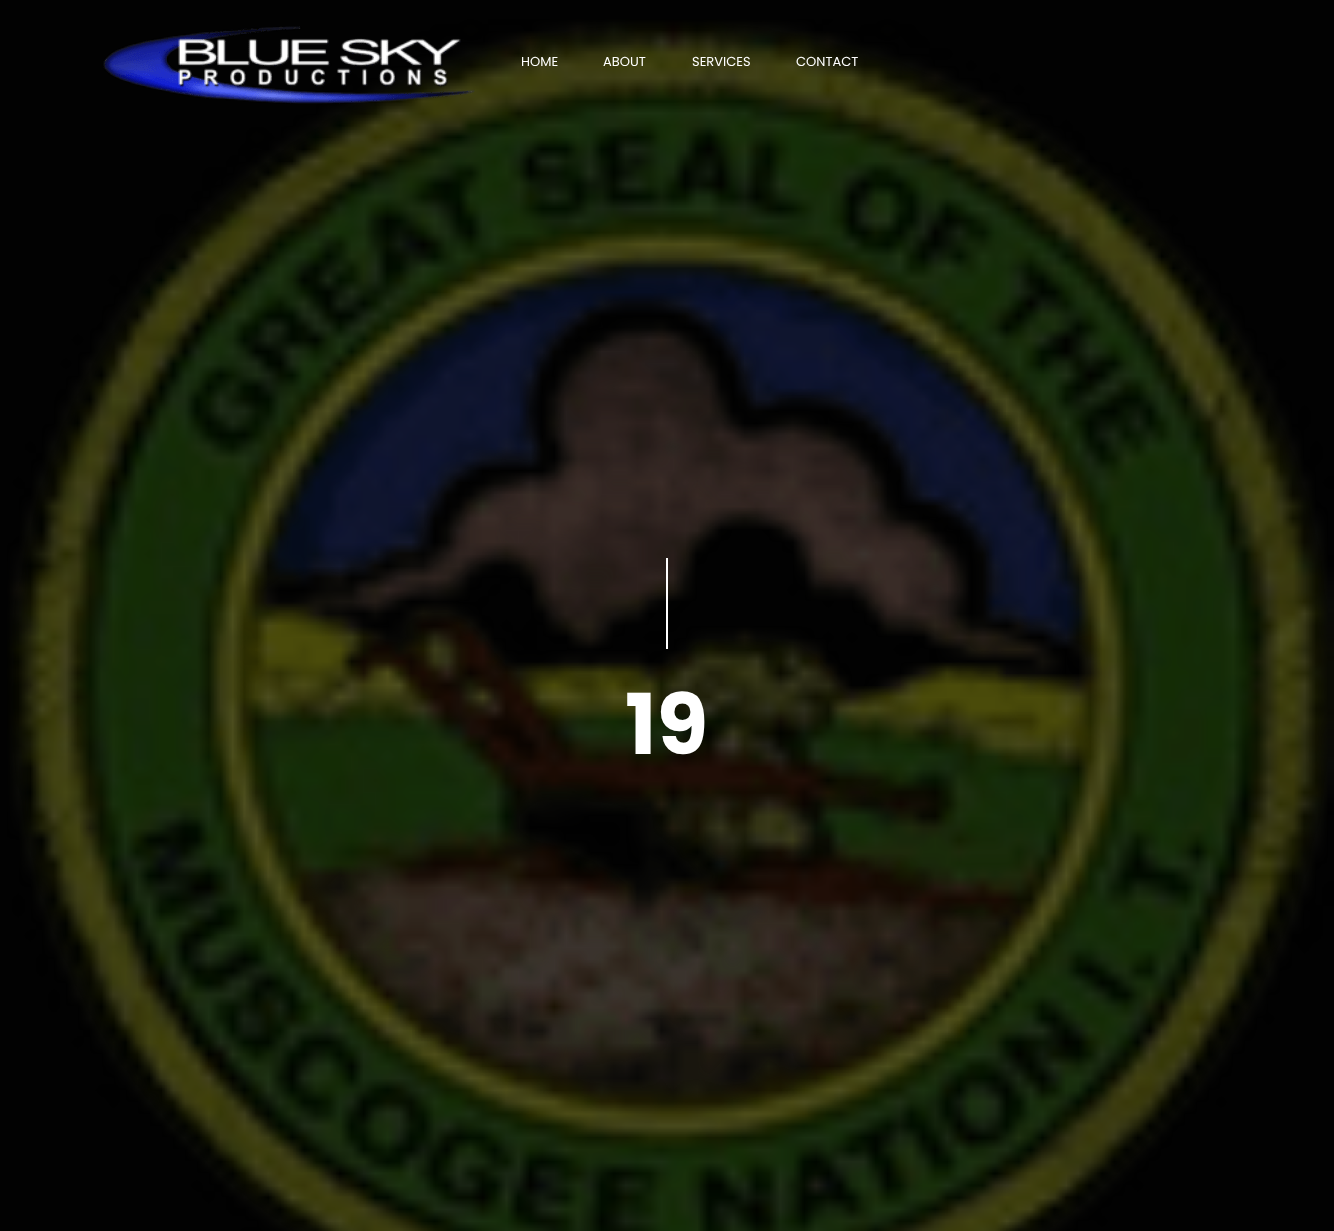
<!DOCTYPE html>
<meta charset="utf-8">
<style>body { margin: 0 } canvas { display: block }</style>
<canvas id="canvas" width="1334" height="1231"></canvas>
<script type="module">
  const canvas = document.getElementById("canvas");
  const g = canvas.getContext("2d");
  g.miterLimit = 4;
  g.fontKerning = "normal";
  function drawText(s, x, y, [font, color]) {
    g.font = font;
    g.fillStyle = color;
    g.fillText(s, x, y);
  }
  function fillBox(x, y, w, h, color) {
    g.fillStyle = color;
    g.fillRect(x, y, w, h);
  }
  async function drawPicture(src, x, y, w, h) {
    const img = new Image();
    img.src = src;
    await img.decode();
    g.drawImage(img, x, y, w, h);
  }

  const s1 = ["13px Poppins", "#FFFFFF"];
  const s2 = ["bold 84px Poppins", "#FFFFFF"];

  fillBox(0, 0, 1334, 1231, "#020202");
  await drawPicture("pic2.png", 7, 19, 1327, 1212);
  await drawPicture("pic1.png", 103, 26, 372, 78);
  drawText("HOME", 521, 66, s1);
  drawText("ABOUT", 603, 66, s1);
  drawText("SERVICES", 692, 66, s1);
  drawText("CONTACT", 796, 66, s1);
  fillBox(666, 558, 2, 91, "#FFFFFF");
  drawText("19", 625, 754, s2);
</script>
